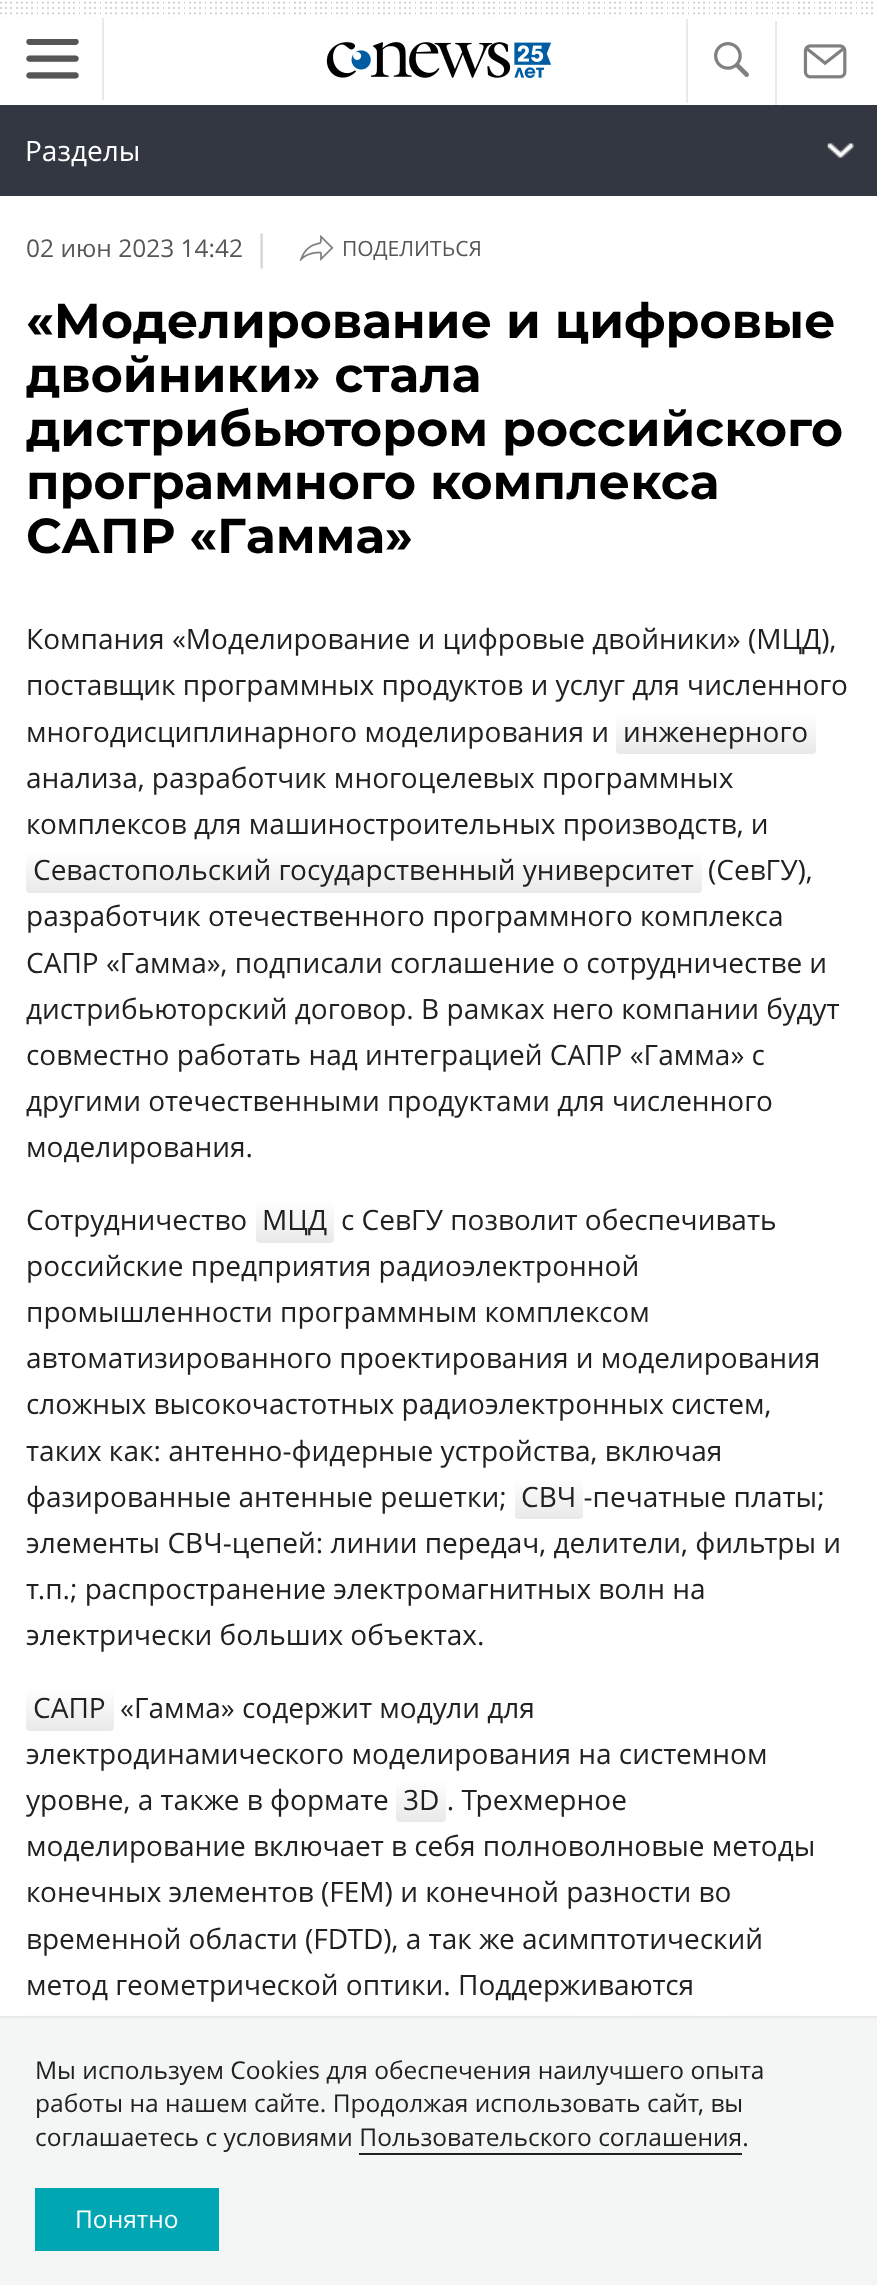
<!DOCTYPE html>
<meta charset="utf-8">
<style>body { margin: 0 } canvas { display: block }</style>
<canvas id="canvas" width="877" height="2285"></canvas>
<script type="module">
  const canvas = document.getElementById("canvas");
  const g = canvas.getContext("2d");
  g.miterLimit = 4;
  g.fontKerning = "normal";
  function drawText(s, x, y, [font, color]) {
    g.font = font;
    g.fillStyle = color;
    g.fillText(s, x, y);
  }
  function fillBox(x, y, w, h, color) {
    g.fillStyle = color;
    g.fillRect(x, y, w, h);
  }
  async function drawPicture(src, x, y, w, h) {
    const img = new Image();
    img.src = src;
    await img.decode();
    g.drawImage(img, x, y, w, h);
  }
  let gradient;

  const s1 = ["28px Open Sans", "#FFFFFF"];
  const s2 = ["24.5px Open Sans", "#565656"];
  const s3 = ["35px Open Sans", "#D4D9DC"];
  const s4 = ["21px Open Sans", "#565656"];
  const s5 = ["bold 49px Montserrat", "#000000"];
  const s6 = ["28px Open Sans", "#212121"];
  const s7 = ["24.5px Open Sans", "#212121"];
  const s8 = ["24.5px Open Sans", "#FFFFFF"];

  fillBox(0, 0, 877, 2285, "#323742");
  fillBox(0, 0, 877, 105, "#FFFFFF");
  await drawPicture("pic1.png", 0, 1, 873, 17);
  fillBox(102, 18, 2, 82, "#E9E9E9");
  await drawPicture("pic2.png", 26, 39, 53, 40);
  await drawPicture("pic3.png", 326, 42, 226, 36);
  fillBox(686, 19, 2, 84, "#E9E9E9");
  await drawPicture("pic4.png", 714, 42, 35, 35);
  fillBox(775, 21, 2, 84, "#E9E9E9");
  await drawPicture("pic5.png", 803, 44, 44, 35);
  drawText("Разделы", 25, 161, s1);
  await drawPicture("pic6.png", 827, 143, 27, 15);
  fillBox(0, 196, 877, 1820, "#FFFFFF");
  drawText("02 июн 2023 14:42", 26, 257, s2);
  drawText("|", 252, 260, s3);
  await drawPicture("pic7.png", 299, 235, 35, 26);
  drawText("ПОДЕЛИТЬСЯ", 342, 256, s4);
  drawText("«Моделирование и цифровые", 26, 338, s5);
  drawText("двойники» стала", 26, 392, s5);
  drawText("дистрибьютором российского", 26, 446, s5);
  drawText("программного комплекса", 26, 499, s5);
  drawText("САПР «Гамма»", 26, 553, s5);
  drawText("Компания «Моделирование и цифровые двойники» (МЦД),", 26, 649, s6);
  drawText("поставщик программных продуктов и услуг для численного", 26, 695, s6);
  drawText("многодисциплинарного моделирования и", 26, 742, s6);
  gradient = g.createLinearGradient(716, 709, 716, 754);
  gradient.addColorStop(0.08, "#FFFFFF");
  gradient.addColorStop(0.99, "#E9E9E9");
  gradient.addColorStop(1, "#FFFFFF");
  g.fillStyle = gradient;
  g.beginPath();
  g.roundRect(616, 709, 200, 45, 4);
  g.fill();
  drawText("инженерного", 623, 742, s6);
  drawText("анализа, разработчик многоцелевых программных", 26, 788, s6);
  drawText("комплексов для машиностроительных производств, и", 26, 834, s6);
  gradient = g.createLinearGradient(364, 847, 364, 893);
  gradient.addColorStop(0.08, "#FFFFFF");
  gradient.addColorStop(0.99, "#E9E9E9");
  gradient.addColorStop(1, "#FFFFFF");
  g.fillStyle = gradient;
  g.beginPath();
  g.roundRect(26, 847, 676, 46, 4);
  g.fill();
  drawText("Севастопольский государственный университет", 33, 880, s6);
  drawText("(СевГУ),", 708, 880, s6);
  drawText("разработчик отечественного программного комплекса", 26, 926, s6);
  drawText("САПР «Гамма», подписали соглашение о сотрудничестве и", 26, 973, s6);
  drawText("дистрибьюторский договор. В рамках него компании будут", 26, 1019, s6);
  drawText("совместно работать над интеграцией САПР «Гамма» с", 26, 1065, s6);
  drawText("другими отечественными продуктами для численного", 26, 1111, s6);
  drawText("моделирования.", 26, 1157, s6);
  drawText("Сотрудничество", 26, 1230, s6);
  gradient = g.createLinearGradient(295, 1197, 295, 1243);
  gradient.addColorStop(0.08, "#FFFFFF");
  gradient.addColorStop(0.99, "#E9E9E9");
  gradient.addColorStop(1, "#FFFFFF");
  g.fillStyle = gradient;
  g.beginPath();
  g.roundRect(256, 1197, 78, 46, 4);
  g.fill();
  drawText("МЦД", 262, 1230, s6);
  drawText("с СевГУ позволит обеспечивать", 341, 1230, s6);
  drawText("российские предприятия радиоэлектронной", 26, 1276, s6);
  drawText("промышленности программным комплексом", 26, 1322, s6);
  drawText("автоматизированного проектирования и моделирования", 26, 1368, s6);
  drawText("сложных высокочастотных радиоэлектронных систем,", 26, 1414, s6);
  drawText("таких как: антенно-фидерные устройства, включая", 26, 1461, s6);
  drawText("фазированные антенные решетки;", 26, 1507, s6);
  gradient = g.createLinearGradient(549, 1474, 549, 1519);
  gradient.addColorStop(0.08, "#FFFFFF");
  gradient.addColorStop(0.99, "#E9E9E9");
  gradient.addColorStop(1, "#FFFFFF");
  g.fillStyle = gradient;
  g.beginPath();
  g.roundRect(515, 1474, 68, 45, 4);
  g.fill();
  drawText("СВЧ -печатные платы;", 521, 1507, s6);
  drawText("элементы СВЧ-цепей: линии передач, делители, фильтры и", 26, 1553, s6);
  drawText("т.п.; распространение электромагнитных волн на", 26, 1599, s6);
  drawText("электрически больших объектах.", 26, 1645, s6);
  gradient = g.createLinearGradient(70, 1685, 70, 1731);
  gradient.addColorStop(0.08, "#FFFFFF");
  gradient.addColorStop(0.99, "#E9E9E9");
  gradient.addColorStop(1, "#FFFFFF");
  g.fillStyle = gradient;
  g.beginPath();
  g.roundRect(26, 1685, 88, 46, 4);
  g.fill();
  drawText("САПР", 33, 1718, s6);
  drawText("«Гамма» содержит модули для", 120, 1718, s6);
  drawText("электродинамического моделирования на системном", 26, 1764, s6);
  drawText("уровне, а также в формате", 26, 1810, s6);
  gradient = g.createLinearGradient(421, 1776, 421, 1822);
  gradient.addColorStop(0.08, "#FFFFFF");
  gradient.addColorStop(0.99, "#E9E9E9");
  gradient.addColorStop(1, "#FFFFFF");
  g.fillStyle = gradient;
  g.beginPath();
  g.roundRect(396, 1776, 50, 46, 4);
  g.fill();
  drawText("3D . Трехмерное", 403, 1810, s6);
  drawText("моделирование включает в себя полноволновые методы", 26, 1856, s6);
  drawText("конечных элементов (FEM) и конечной разности во", 26, 1902, s6);
  drawText("временной области (FDTD), а так же асимптотический", 26, 1949, s6);
  drawText("метод геометрической оптики. Поддерживаются", 26, 1995, s6);
  gradient = g.createLinearGradient(303, 2007, 303, 2053);
  gradient.addColorStop(0.08, "#FFFFFF");
  gradient.addColorStop(0.99, "#E9E9E9");
  gradient.addColorStop(1, "#FFFFFF");
  g.fillStyle = gradient;
  g.beginPath();
  g.roundRect(26, 2007, 553, 46, 4);
  g.fill();
  gradient = g.createLinearGradient(662, 2007, 662, 2053);
  gradient.addColorStop(0.08, "#FFFFFF");
  gradient.addColorStop(0.99, "#E9E9E9");
  gradient.addColorStop(1, "#FFFFFF");
  g.fillStyle = gradient;
  g.beginPath();
  g.roundRect(628, 2007, 69, 46, 4);
  g.fill();
  gradient = g.createLinearGradient(765, 2007, 765, 2053);
  gradient.addColorStop(0.08, "#FFFFFF");
  gradient.addColorStop(0.99, "#E9E9E9");
  gradient.addColorStop(1, "#FFFFFF");
  g.fillStyle = gradient;
  g.beginPath();
  g.roundRect(730, 2007, 70, 46, 4);
  g.fill();
  fillBox(0, 2018, 877, 267, "#F4F5F5");
  fillBox(0, 2016, 877, 2, "#E9E9E9");
  drawText("Мы используем Сookies для обеспечения наилучшего опыта", 35, 2079, s7);
  drawText("работы на нашем сайте. Продолжая использовать сайт, вы", 35, 2112, s7);
  drawText("соглашаетесь с условиями Пользовательского соглашения.", 35, 2146, s7);
  fillBox(359, 2153, 383, 2, "#212121");
  fillBox(35, 2188, 184, 63, "#00A7B3");
  drawText("Понятно", 75, 2228, s8);
</script>
